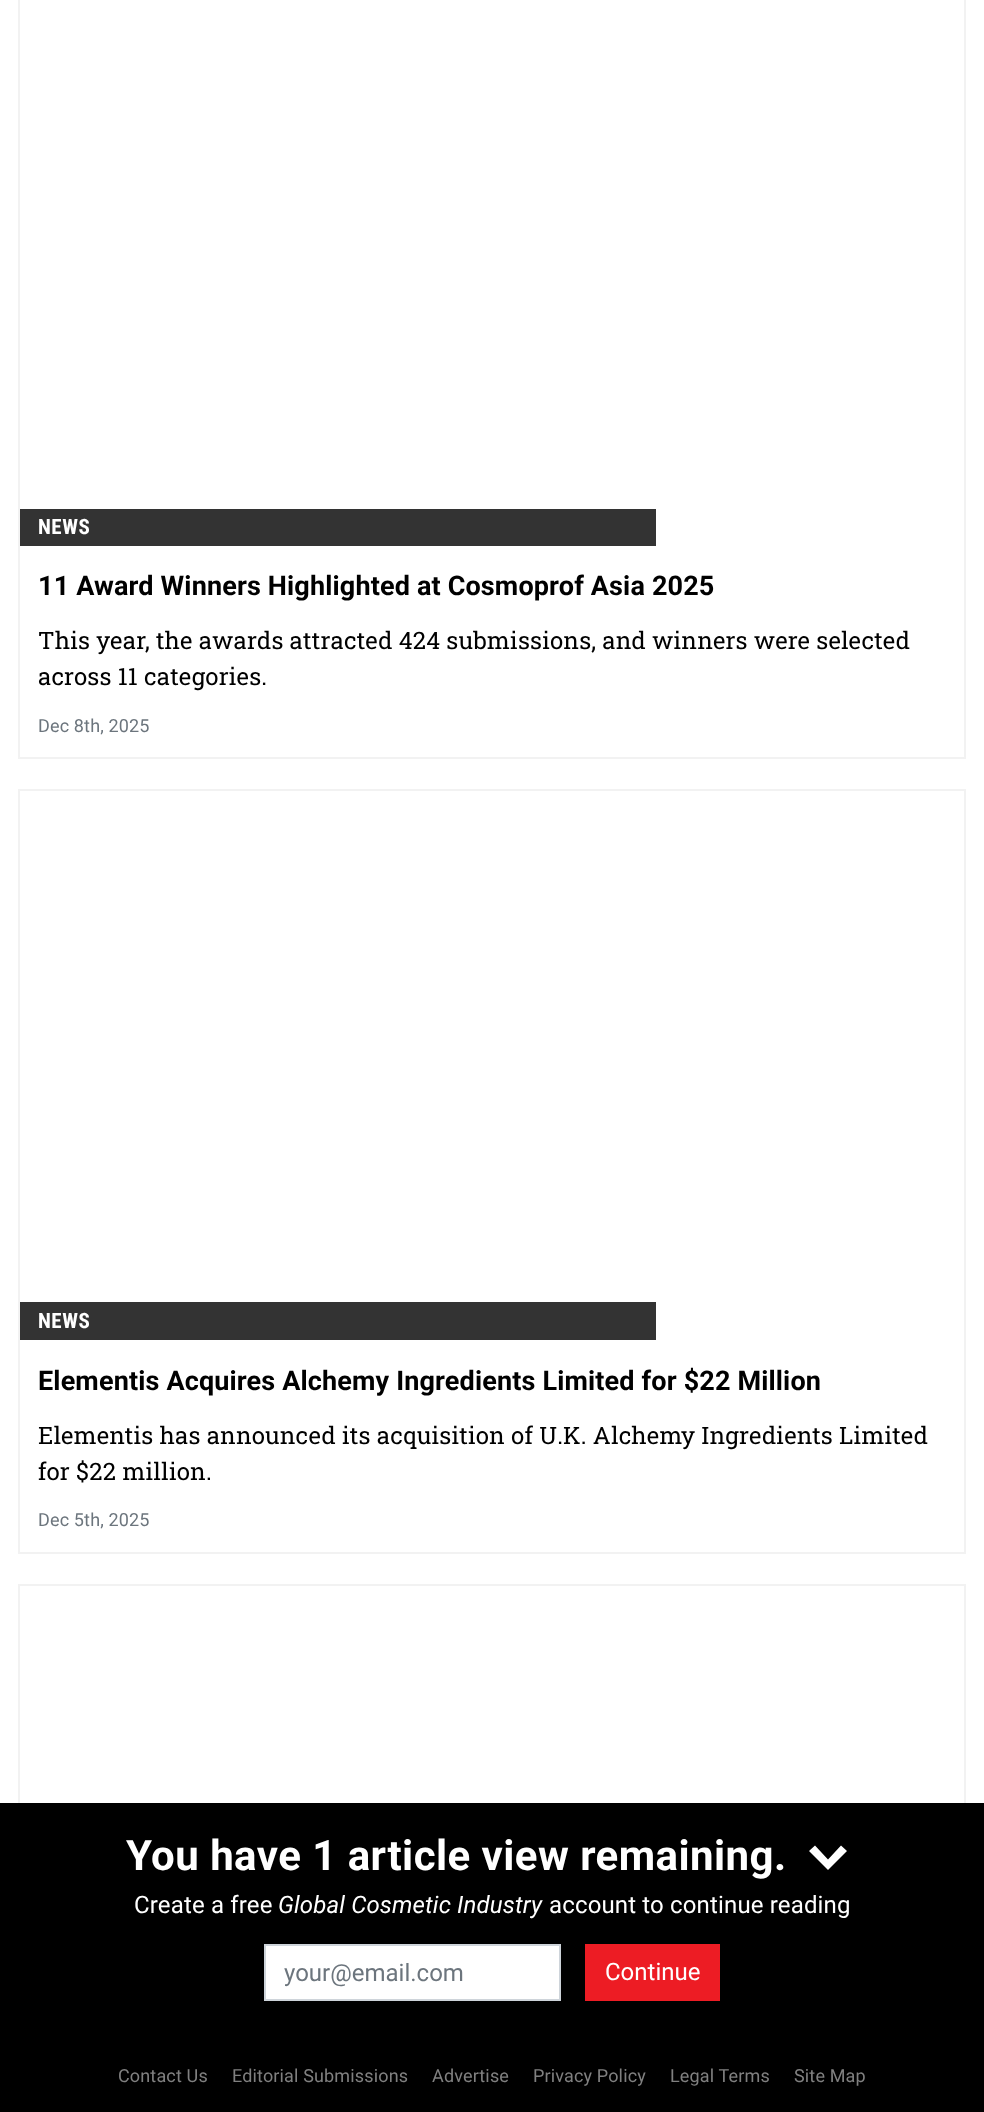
<!DOCTYPE html>
<meta charset="utf-8">
<style>body { margin: 0 } canvas { display: block }</style>
<canvas id="canvas" width="984" height="2112"></canvas>
<script type="module">
  const canvas = document.getElementById("canvas");
  const g = canvas.getContext("2d");
  g.miterLimit = 4;
  g.fontKerning = "normal";
  function drawText(s, x, y, [font, color]) {
    g.font = font;
    g.fillStyle = color;
    g.fillText(s, x, y);
  }
  function fillBox(x, y, w, h, color) {
    g.fillStyle = color;
    g.fillRect(x, y, w, h);
  }

  const s1 = ["bold 21px Roboto Condensed", "#FFFFFF"];
  const s2 = ["bold 27px Roboto", "#000000"];
  const s3 = ["24px Roboto Slab", "#000000"];
  const s4 = ["18px Roboto", "#6C757D"];
  const s5 = ["bold 42px Roboto", "#FFFFFF"];
  const s6 = ["24px Roboto", "#FFFFFF"];
  const s7 = ["italic 24px Roboto", "#FFFFFF"];
  const s8 = ["24px Roboto", "#6C757D"];
  const s9 = ["18px Roboto", "#808080"];

  fillBox(0, 0, 984, 2112, "#FFFFFF");
  g.strokeStyle = "#F2F2F2";
  g.lineWidth = 2;
  g.strokeRect(19, -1, 946, 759);
  fillBox(20, 509, 636, 37, "#333333");
  g.letterSpacing = "0.5px";
  drawText("NEWS", 38, 534, s1);
  g.letterSpacing = "0.15px";
  drawText("11 Award Winners Highlighted at Cosmoprof Asia 2025", 38, 595, s2);
  drawText("This year, the awards attracted 424 submissions, and winners were selected", 38, 649, s3);
  drawText("across 11 categories.", 38, 685, s3);
  drawText("Dec 8th, 2025", 38, 732, s4);
  g.strokeRect(19, 790, 946, 763);
  fillBox(20, 1302, 636, 38, "#333333");
  g.letterSpacing = "0.5px";
  drawText("NEWS", 38, 1328, s1);
  g.letterSpacing = "0.15px";
  drawText("Elementis Acquires Alchemy Ingredients Limited for $22 Million", 38, 1390, s2);
  drawText("Elementis has announced its acquisition of U.K. Alchemy Ingredients Limited", 38, 1444, s3);
  drawText("for $22 million.", 38, 1480, s3);
  drawText("Dec 5th, 2025", 38, 1526, s4);
  g.strokeRect(19, 1585, 946, 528);
  fillBox(0, 1803, 984, 309, "#000000");
  g.letterSpacing = "0.45px";
  drawText("You have 1 article view remaining.", 126, 1870, s5);
  g.beginPath();
  g.moveTo(828, 1870);
  g.lineTo(809, 1851);
  g.lineTo(815, 1845.5);
  g.lineTo(828, 1859.5);
  g.lineTo(841, 1845.5);
  g.lineTo(847, 1851);
  g.closePath();
  g.fill("evenodd");
  g.letterSpacing = "0.15px";
  drawText("Create a free", 134, 1913, s6);
  drawText("Global Cosmetic Industry", 278, 1913, s7);
  drawText("account to continue reading", 549, 1913, s6);
  g.beginPath();
  g.rect(265, 1945, 295, 55);
  g.fill();
  g.strokeStyle = "#CED4DA";
  g.stroke();
  g.letterSpacing = "0px";
  drawText("your@email.com", 284, 1981, s8);
  fillBox(585, 1944, 135, 57, "#ED1C24");
  drawText("Continue", 605, 1980, s6);
  g.letterSpacing = "0.15px";
  drawText("Contact Us", 118, 2082, s9);
  drawText("Editorial Submissions", 232, 2082, s9);
  drawText("Advertise", 432, 2082, s9);
  drawText("Privacy Policy", 533, 2082, s9);
  drawText("Legal Terms", 670, 2082, s9);
  drawText("Site Map", 794, 2082, s9);
</script>
